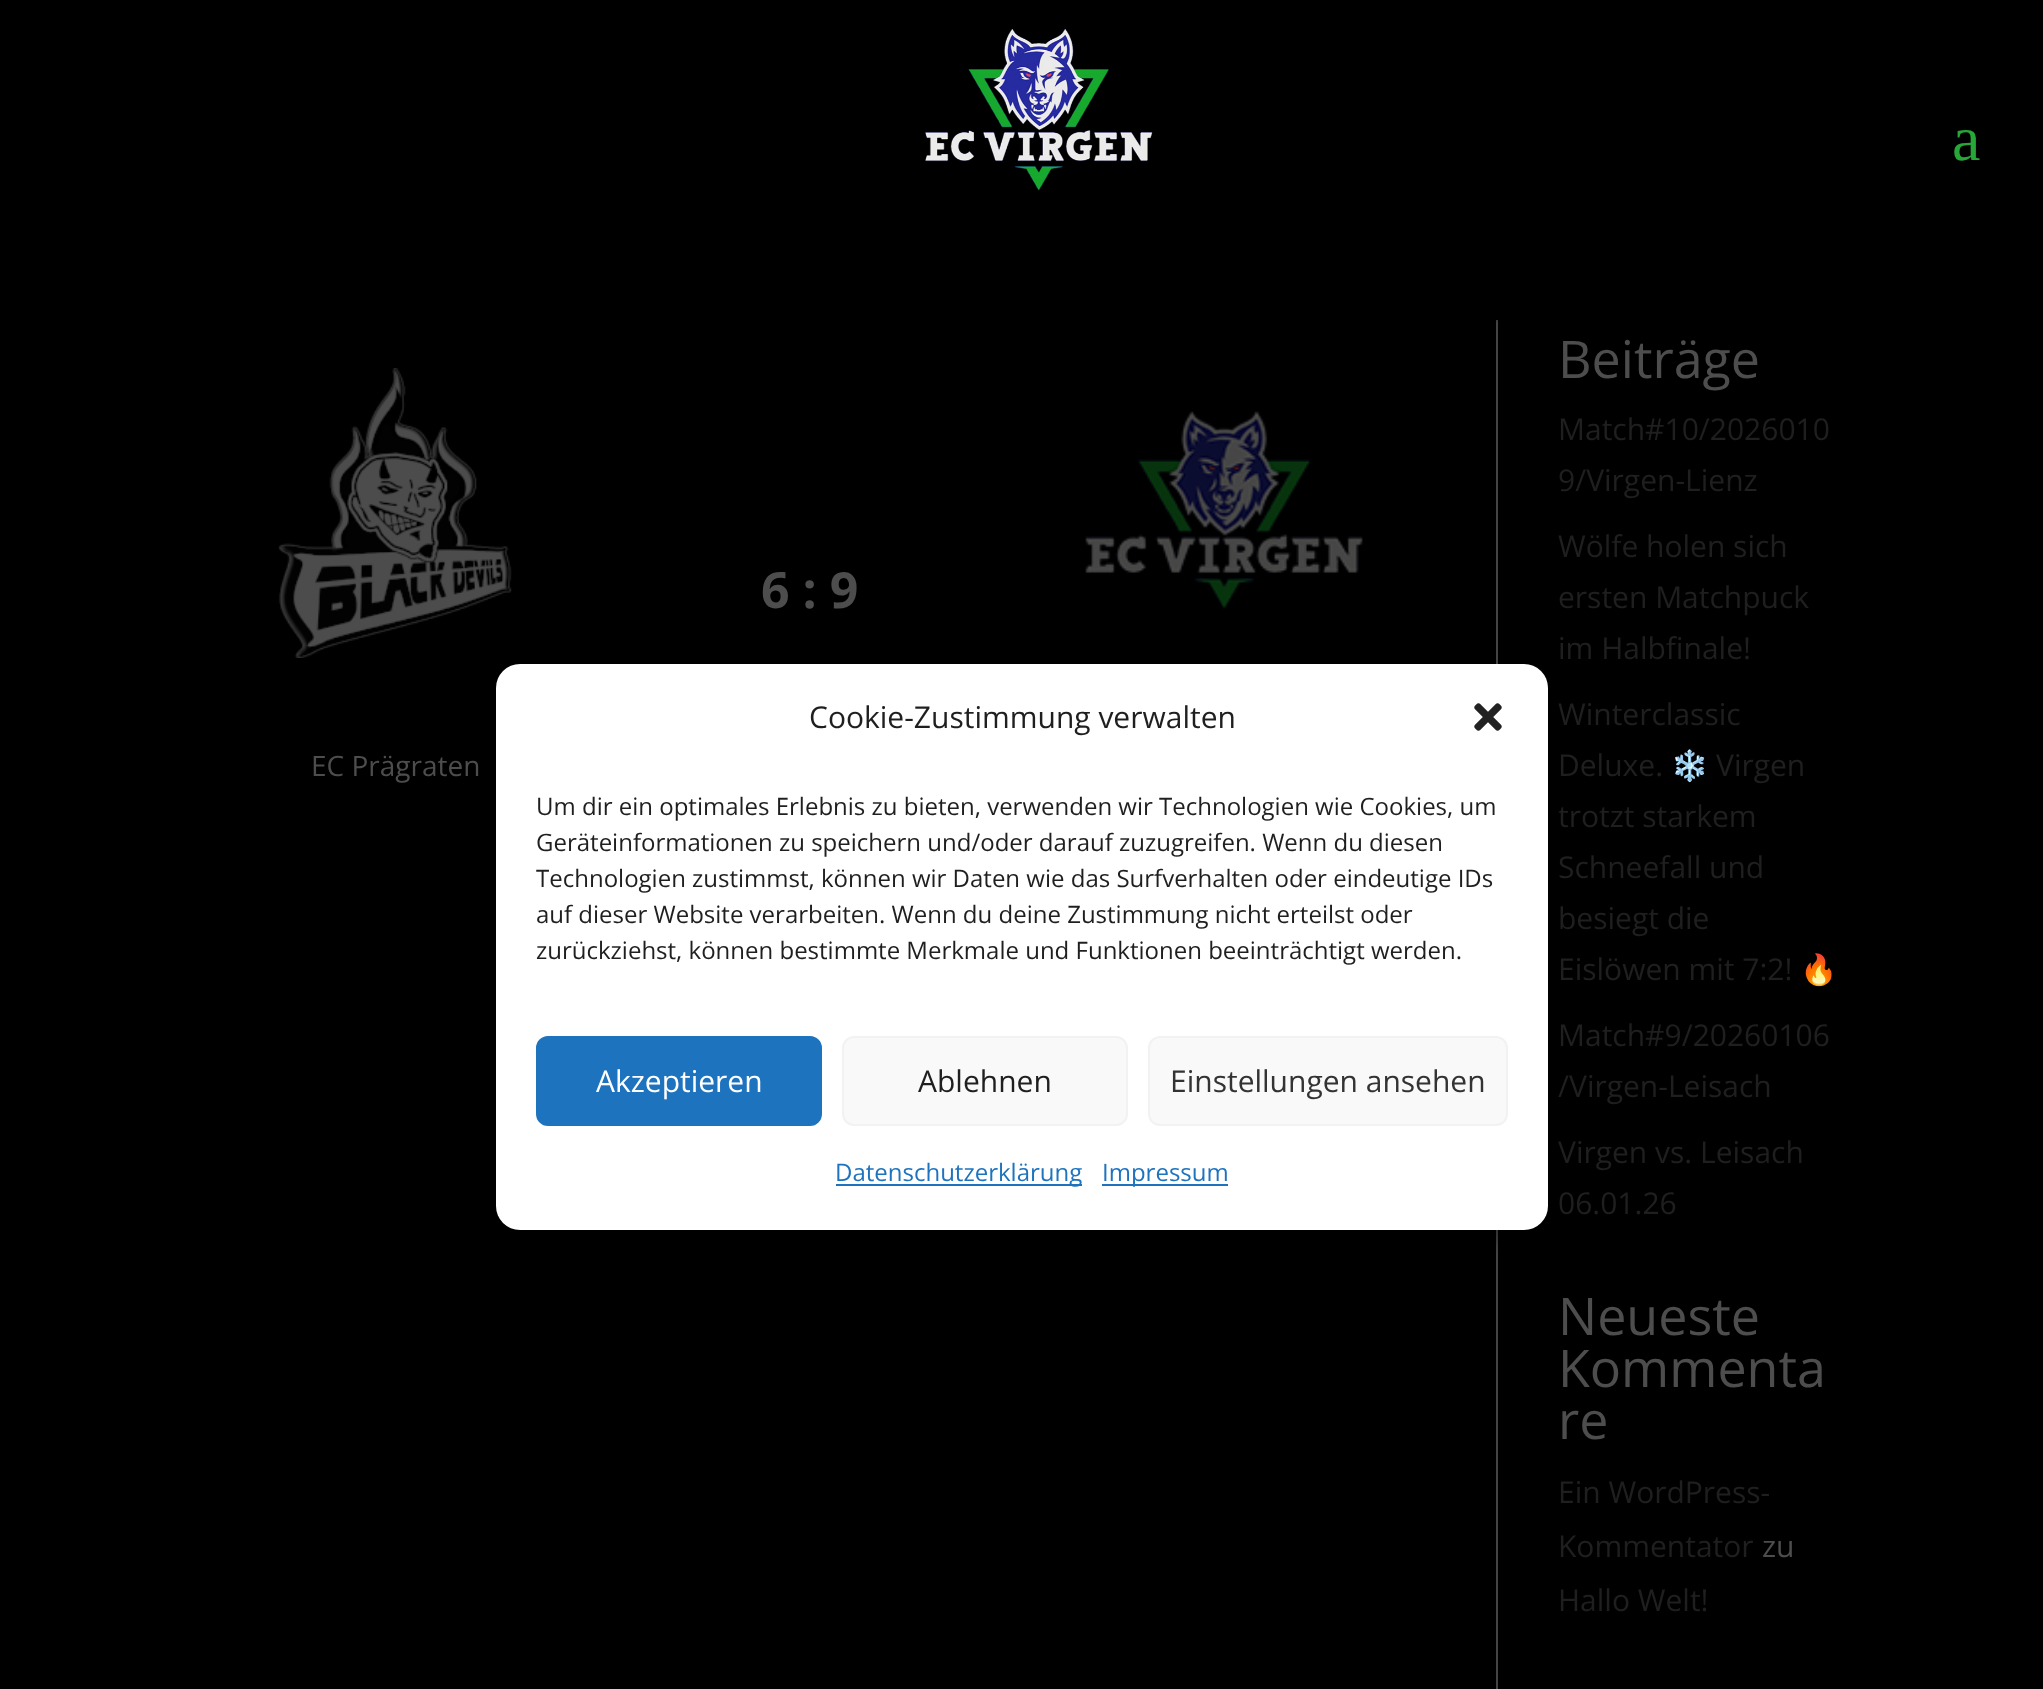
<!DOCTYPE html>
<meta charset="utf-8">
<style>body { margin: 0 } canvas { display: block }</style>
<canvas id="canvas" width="2043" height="1689"></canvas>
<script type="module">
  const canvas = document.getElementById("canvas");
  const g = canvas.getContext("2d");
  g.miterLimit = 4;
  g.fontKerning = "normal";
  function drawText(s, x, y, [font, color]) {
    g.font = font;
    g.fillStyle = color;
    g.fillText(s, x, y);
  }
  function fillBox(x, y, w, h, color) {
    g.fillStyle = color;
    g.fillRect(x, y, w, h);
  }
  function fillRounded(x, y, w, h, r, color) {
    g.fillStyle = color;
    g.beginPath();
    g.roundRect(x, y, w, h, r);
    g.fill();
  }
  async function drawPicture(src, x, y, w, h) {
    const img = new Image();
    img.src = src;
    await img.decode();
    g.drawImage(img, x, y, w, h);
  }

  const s1 = ["64px Liberation Serif", "#27A737"];
  const s2 = ["bold 50px Open Sans", "#4D4D4D"];
  const s3 = ["28px Open Sans", "#4D4D4D"];
  const s4 = ["52px Open Sans", "#4D4D4D"];
  const s5 = ["30px Open Sans", "#1F1F1F"];
  const s6 = ["30px Noto Color Emoji", "#1F1F1F"];
  const s7 = ["30px Open Sans", "#4D4D4D"];
  const s8 = ["24px Open Sans", "#1F1F1F"];
  const s9 = ["30px Open Sans", "#FFFFFF"];
  const s10 = ["30px Open Sans", "#333333"];
  const s11 = ["24px Open Sans", "#1E73BE"];

  fillBox(0, 0, 2043, 1689, "#000000");
  fillBox(1496, 320, 2, 1369, "#444444");
  fillBox(1496, 320, 2, 2, "rgba(0, 0, 0, 0.1)");
  await drawPicture("pic1.png", 925, 29, 228, 162);
  drawText("a", 1952, 160, s1);
  await drawPicture("pic2.png", 278, 368, 234, 290);
  drawText("6 : 9", 761, 608, s2);
  await drawPicture("pic3.png", 1085, 411, 278, 198);
  drawText("EC Prägraten", 311, 776, s3);
  drawText("Beiträge", 1558, 378, s4);
  drawText("Match#10/2026010", 1558, 440, s5);
  drawText("9/Virgen-Lienz", 1558, 491, s5);
  drawText("Wölfe holen sich", 1558, 557, s5);
  drawText("ersten Matchpuck", 1558, 608, s5);
  drawText("im Halbfinale!", 1558, 659, s5);
  drawText("Winterclassic", 1558, 725, s5);
  drawText("Deluxe.", 1558, 776, s5);
  drawText("❄️", 1671, 776, s6);
  drawText("Virgen", 1716, 776, s5);
  drawText("trotzt starkem", 1558, 827, s5);
  drawText("Schneefall und", 1558, 878, s5);
  drawText("besiegt die", 1558, 929, s5);
  drawText("Eislöwen mit 7:2!", 1558, 980, s5);
  drawText("🔥", 1800, 980, s6);
  drawText("Match#9/20260106", 1558, 1046, s5);
  drawText("/Virgen-Leisach", 1558, 1097, s5);
  drawText("Virgen vs. Leisach", 1558, 1163, s5);
  drawText("06.01.26", 1558, 1214, s5);
  drawText("Neueste", 1558, 1335, s4);
  drawText("Kommenta", 1558, 1387, s4);
  drawText("re", 1558, 1439, s4);
  drawText("Ein WordPress-", 1558, 1503, s5);
  drawText("Kommentator", 1558, 1557, s5);
  drawText("zu", 1762, 1557, s7);
  drawText("Hallo Welt!", 1558, 1611, s5);
  g.fillStyle = "rgba(0, 0, 0, 0.23)";
  g.filter = "blur(6px)";
  g.beginPath();
  g.roundRect(496, 676, 1052, 566, 24);
  g.fill();
  g.filter = "none";
  fillRounded(496, 664, 1052, 566, 24, "#FFFFFF");
  drawText("Cookie-Zustimmung verwalten", 809, 728, s5);
  await drawPicture("pic4.png", 1474, 703, 28, 28);
  drawText("Um dir ein optimales Erlebnis zu bieten, verwenden wir Technologien wie Cookies, um", 536, 815, s8);
  drawText("Geräteinformationen zu speichern und/oder darauf zuzugreifen. Wenn du diesen", 536, 851, s8);
  drawText("Technologien zustimmst, können wir Daten wie das Surfverhalten oder eindeutige IDs", 536, 887, s8);
  drawText("auf dieser Website verarbeiten. Wenn du deine Zustimmung nicht erteilst oder", 536, 923, s8);
  drawText("zurückziehst, können bestimmte Merkmale und Funktionen beeinträchtigt werden.", 536, 959, s8);
  g.fillStyle = "#1E73BE";
  g.beginPath();
  g.roundRect(537, 1037, 284, 88, 11);
  g.fill();
  g.strokeStyle = "#1E73BE";
  g.lineWidth = 2;
  g.stroke();
  drawText("Akzeptieren", 596, 1092, s9);
  g.fillStyle = "#F9F9F9";
  g.beginPath();
  g.roundRect(843, 1037, 284, 88, 11);
  g.fill();
  g.strokeStyle = "#F2F2F2";
  g.stroke();
  drawText("Ablehnen", 918, 1092, s5);
  g.fillStyle = "#F9F9F9";
  g.beginPath();
  g.roundRect(1149, 1037, 358, 88, 11);
  g.fill();
  g.stroke();
  drawText("Einstellungen ansehen", 1170, 1092, s10);
  fillBox(836, 1184, 246, 2, "#1E73BE");
  drawText("Datenschutzerklärung", 835, 1181, s11);
  fillBox(1102, 1184, 126, 2, "#1E73BE");
  drawText("Impressum", 1102, 1181, s11);
</script>
